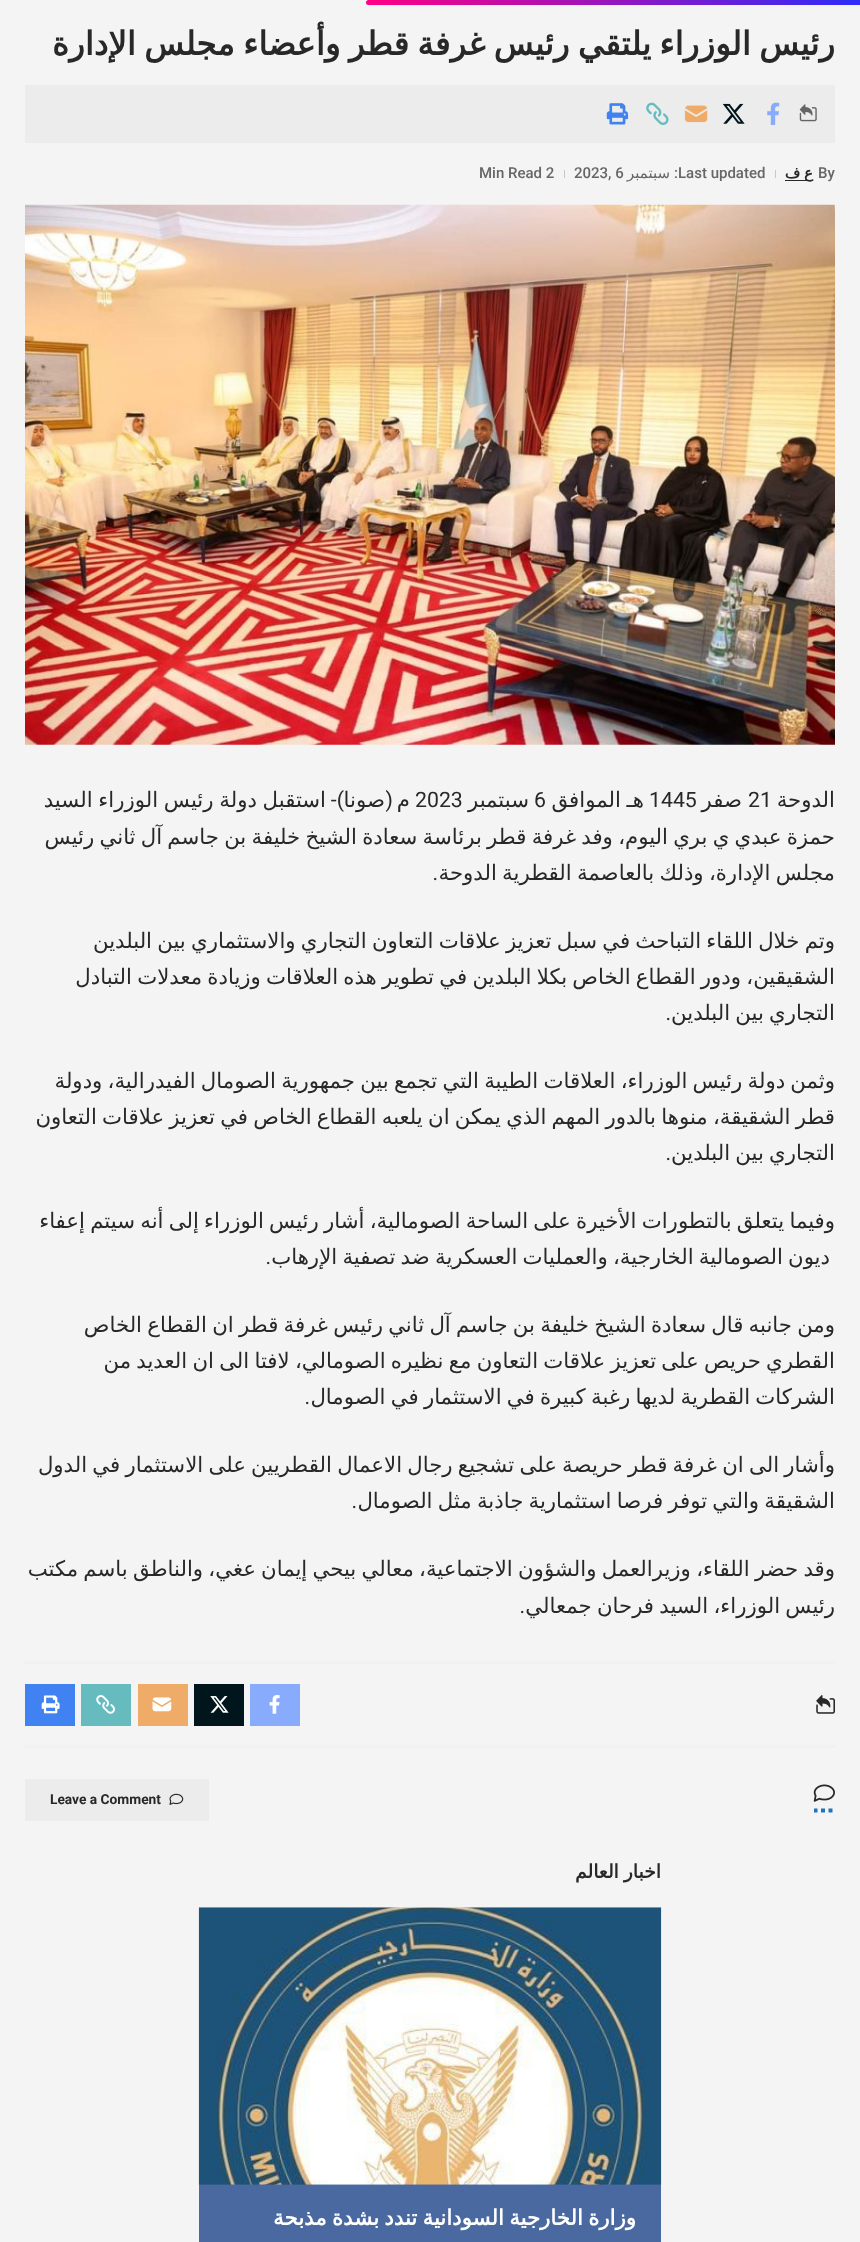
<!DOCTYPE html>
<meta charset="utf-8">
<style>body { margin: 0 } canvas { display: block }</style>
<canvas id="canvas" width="860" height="2242"></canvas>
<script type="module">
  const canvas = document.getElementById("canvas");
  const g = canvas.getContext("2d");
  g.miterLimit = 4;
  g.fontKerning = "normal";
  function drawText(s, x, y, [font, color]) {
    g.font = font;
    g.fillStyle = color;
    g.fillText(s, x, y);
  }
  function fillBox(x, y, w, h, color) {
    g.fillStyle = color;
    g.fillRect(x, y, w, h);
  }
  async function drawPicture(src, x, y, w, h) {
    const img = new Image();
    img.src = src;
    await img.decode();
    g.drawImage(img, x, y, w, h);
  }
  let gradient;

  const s1 = ["bold 32.5px DejaVu Sans", "#282828"];
  const s2 = ["500 15px Roboto", "#666666"];
  const s3 = ["bold 15px DejaVu Sans", "#282828"];
  const s4 = ["15px DejaVu Sans", "#666666"];
  const s5 = ["21.25px DejaVu Sans", "#282828"];
  const s6 = ["21.25px Roboto", "#282828"];
  const s7 = ["bold 13.75px Roboto", "#282828"];
  const s8 = ["bold 18.75px DejaVu Sans", "#282828"];
  const s9 = ["bold 21.25px DejaVu Sans", "#FFFFFF"];

  fillBox(0, 0, 860, 2242, "#F4F4F4");
  gradient = g.createLinearGradient(366, 2.5, 860, 2.5);
  gradient.addColorStop(0, "#FF0084");
  gradient.addColorStop(1, "#2C2CF8");
  g.fillStyle = gradient;
  g.beginPath();
  g.roundRect(366, 0, 494, 5, [2.5, 0, 0, 2.5]);
  g.fill();
  g.wordSpacing = "-2px";
  g.direction = "rtl";
  drawText("رئيس الوزراء يلتقي رئيس غرفة قطر وأعضاء مجلس الإدارة", 835, 55, s1);
  fillBox(25, 85, 810, 58, "#ECECEC");
  await drawPicture("pic1.png", 799, 104, 18, 18);
  await drawPicture("pic2.png", 767, 102, 13, 23);
  await drawPicture("pic3.png", 722, 103, 23, 21);
  await drawPicture("pic4.png", 684, 105, 24, 18);
  await drawPicture("pic5.png", 646, 102, 23, 23);
  await drawPicture("pic6.png", 606, 103, 23, 22);
  g.wordSpacing = "0px";
  g.direction = "ltr";
  drawText("By", 818, 178, s2);
  fillBox(785, 180, 28, 1, "#282828");
  g.wordSpacing = "-1px";
  g.direction = "rtl";
  drawText("ع ف", 813, 178, s3);
  fillBox(775, 170, 1, 8, "#C9C9C9");
  g.wordSpacing = "0px";
  g.direction = "ltr";
  drawText("Last updated", 678, 178, s2);
  g.direction = "rtl";
  drawText(":", 678, 178, s2);
  drawText("سبتمبر", 670, 178, s4);
  g.direction = "ltr";
  drawText("2023, 6", 574, 178, s2);
  fillBox(564, 170, 1, 8, "#C9C9C9");
  drawText("Min Read 2", 479, 178, s2);
  await drawPicture("pic7.png", 25, 204, 810, 541);
  g.direction = "rtl";
  drawText("الدوحة", 835, 807, s5);
  g.direction = "ltr";
  drawText("21", 748, 807, s6);
  g.direction = "rtl";
  drawText("صفر", 742, 807, s5);
  g.direction = "ltr";
  drawText("1445", 649, 807, s6);
  g.wordSpacing = "-1px";
  g.direction = "rtl";
  drawText("هـ الموافق", 644, 807, s5);
  g.wordSpacing = "0px";
  g.direction = "ltr";
  drawText("6", 534, 807, s6);
  g.direction = "rtl";
  drawText("سبتمبر", 529, 807, s5);
  g.direction = "ltr";
  drawText("2023", 415, 807, s6);
  g.direction = "rtl";
  drawText("م", 410, 807, s5);
  drawText("(", 393, 807, s6);
  drawText("صونا", 385, 807, s5);
  drawText(")-", 344, 807, s6);
  g.wordSpacing = "-1px";
  drawText("استقبل دولة رئيس الوزراء السيد", 326, 807, s5);
  g.wordSpacing = "-1.5px";
  drawText("حمزة عبدي ي بري اليوم، وفد غرفة قطر برئاسة سعادة الشيخ خليفة بن جاسم آل ثاني رئيس", 835, 844, s5);
  drawText("مجلس الإدارة، وذلك بالعاصمة القطرية الدوحة", 835, 880, s5);
  g.wordSpacing = "0px";
  drawText(".", 438, 880, s6);
  g.wordSpacing = "-1.5px";
  drawText("وتم خلال اللقاء التباحث في سبل تعزيز علاقات التعاون التجاري والاستثماري بين البلدين", 835, 948, s5);
  drawText("الشقيقين، ودور القطاع الخاص بكلا البلدين في تطوير هذه العلاقات وزيادة معدلات التبادل", 835, 984, s5);
  drawText("التجاري بين البلدين", 835, 1020, s5);
  g.wordSpacing = "0px";
  drawText(".", 671, 1020, s6);
  g.wordSpacing = "-1.5px";
  drawText("وثمن دولة رئيس الوزراء، العلاقات الطيبة التي تجمع بين جمهورية الصومال الفيدرالية، ودولة", 835, 1088, s5);
  drawText("قطر الشقيقة، منوها بالدور المهم الذي يمكن ان يلعبه القطاع الخاص في تعزيز علاقات التعاون", 835, 1124, s5);
  drawText("التجاري بين البلدين", 835, 1160, s5);
  g.wordSpacing = "0px";
  drawText(".", 671, 1160, s6);
  g.wordSpacing = "-1.5px";
  drawText("وفيما يتعلق بالتطورات الأخيرة على الساحة الصومالية، أشار رئيس الوزراء إلى أنه سيتم إعفاء", 835, 1228, s5);
  drawText("ديون الصومالية الخارجية، والعمليات العسكرية ضد تصفية الإرهاب", 830, 1264, s5);
  g.wordSpacing = "0px";
  drawText(".", 271, 1264, s6);
  g.wordSpacing = "-1.5px";
  drawText("ومن جانبه قال سعادة الشيخ خليفة بن جاسم آل ثاني رئيس غرفة قطر ان القطاع الخاص", 835, 1332, s5);
  drawText("القطري حريص على تعزيز علاقات التعاون مع نظيره الصومالي، لافتا الى ان العديد من", 835, 1368, s5);
  drawText("الشركات القطرية لديها رغبة كبيرة في الاستثمار في الصومال", 835, 1404, s5);
  g.wordSpacing = "0px";
  drawText(".", 310, 1404, s6);
  g.wordSpacing = "-1.5px";
  drawText("وأشار الى ان غرفة قطر حريصة على تشجيع رجال الاعمال القطريين على الاستثمار في الدول", 835, 1472, s5);
  drawText("الشقيقة والتي توفر فرصا استثمارية جاذبة مثل الصومال", 835, 1508, s5);
  g.wordSpacing = "0px";
  drawText(".", 357, 1508, s6);
  g.wordSpacing = "-1.5px";
  drawText("وقد حضر اللقاء، وزيرالعمل والشؤون الاجتماعية، معالي بيحي إيمان عغي، والناطق باسم مكتب", 835, 1576, s5);
  drawText("رئيس الوزراء، السيد فرحان جمعالي", 835, 1613, s5);
  g.wordSpacing = "0px";
  drawText(".", 525, 1613, s6);
  fillBox(25, 1661, 810, 3, "#F1F1F1");
  await drawPicture("pic8.png", 816, 1695, 19, 19);
  fillBox(250, 1684, 50, 42, "#89ABFC");
  await drawPicture("pic9.png", 269, 1695, 11, 19);
  fillBox(194, 1684, 50, 42, "#00151C");
  await drawPicture("pic10.png", 210, 1696, 19, 17);
  fillBox(138, 1684, 50, 42, "#EFAB68");
  await drawPicture("pic11.png", 152, 1697, 20, 15);
  fillBox(81, 1684, 50, 42, "#66BBBF");
  await drawPicture("pic12.png", 96, 1695, 19, 19);
  fillBox(25, 1684, 50, 42, "#4082F1");
  await drawPicture("pic13.png", 41, 1695, 19, 19);
  fillBox(25, 1745, 810, 3, "#F1F1F1");
  g.beginPath();
  g.moveTo(814, 1810.5);
  g.lineTo(817.5, 1810.5);
  g.moveTo(821, 1810.5);
  g.lineTo(825, 1810.5);
  g.moveTo(828.5, 1810.5);
  g.lineTo(832.5, 1810.5);
  g.strokeStyle = "#1E73BE";
  g.lineWidth = 3.8;
  g.stroke();
  await drawPicture("pic14.png", 813, 1784, 22, 18);
  fillBox(25, 1779, 184, 42, "#ECECEC");
  await drawPicture("pic15.png", 169, 1793, 15, 12);
  g.direction = "ltr";
  drawText("Leave a Comment", 50, 1804, s7);
  g.wordSpacing = "-1px";
  g.direction = "rtl";
  drawText("اخبار العالم", 661, 1878, s8);
  fillBox(199, 2184, 462, 58, "#4969A0");
  await drawPicture("pic16.png", 198, 1907, 464, 278);
  g.wordSpacing = "-1.5px";
  drawText("وزارة الخارجية السودانية تندد بشدة مذبحة", 636, 2225, s9);
</script>
